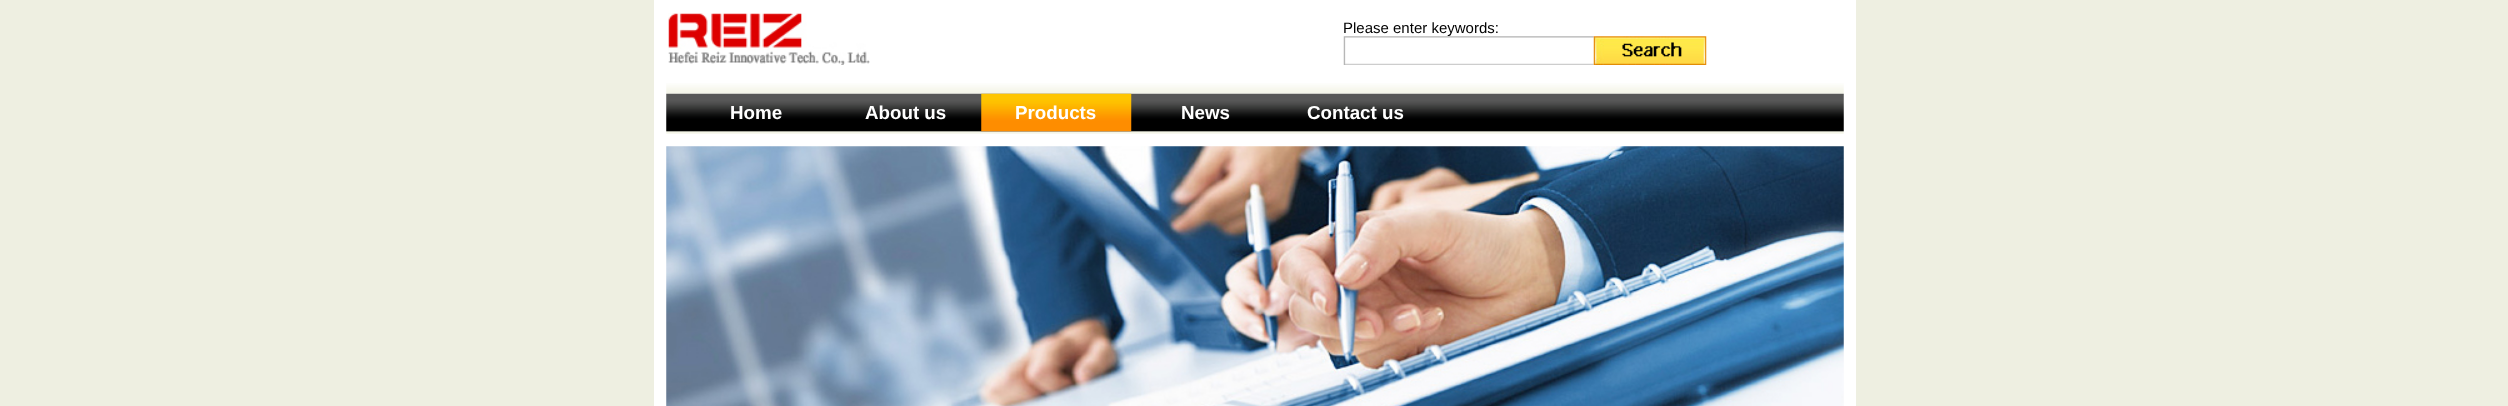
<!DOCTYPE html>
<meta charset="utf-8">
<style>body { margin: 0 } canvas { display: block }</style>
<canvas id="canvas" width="2508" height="406"></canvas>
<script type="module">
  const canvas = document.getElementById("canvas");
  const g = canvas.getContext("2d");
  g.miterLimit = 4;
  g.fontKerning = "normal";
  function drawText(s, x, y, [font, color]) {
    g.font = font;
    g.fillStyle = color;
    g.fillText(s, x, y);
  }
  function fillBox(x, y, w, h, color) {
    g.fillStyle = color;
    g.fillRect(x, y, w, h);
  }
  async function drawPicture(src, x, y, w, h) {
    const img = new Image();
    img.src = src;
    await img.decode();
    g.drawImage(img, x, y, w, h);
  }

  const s1 = ["15px Liberation Sans", "#000000"];
  const s2 = ["bold 18.75px Liberation Sans", "#FFFFFF"];

  fillBox(0, 0, 2508, 406, "#EEEFE1");
  fillBox(654, 0, 1202, 406, "#FFFFFF");
  await drawPicture("pic1.png", 666, 83, 1178, 11);
  await drawPicture("pic2.png", 668, 13, 202, 52);
  await drawPicture("pic3.png", 1343, 36, 251, 29);
  drawText("Please enter keywords:", 1343, 33, s1);
  await drawPicture("pic4.png", 1593, 36, 114, 29);
  await drawPicture("pic5.png", 666, 93, 1178, 41);
  drawText("Home", 730, 119, s2);
  drawText("About us", 865, 119, s2);
  await drawPicture("pic6.png", 981, 93, 151, 39);
  drawText("Products", 1015, 119, s2);
  drawText("News", 1181, 119, s2);
  drawText("Contact us", 1307, 119, s2);
  await drawPicture("pic7.png", 666, 146, 1178, 260);
</script>
